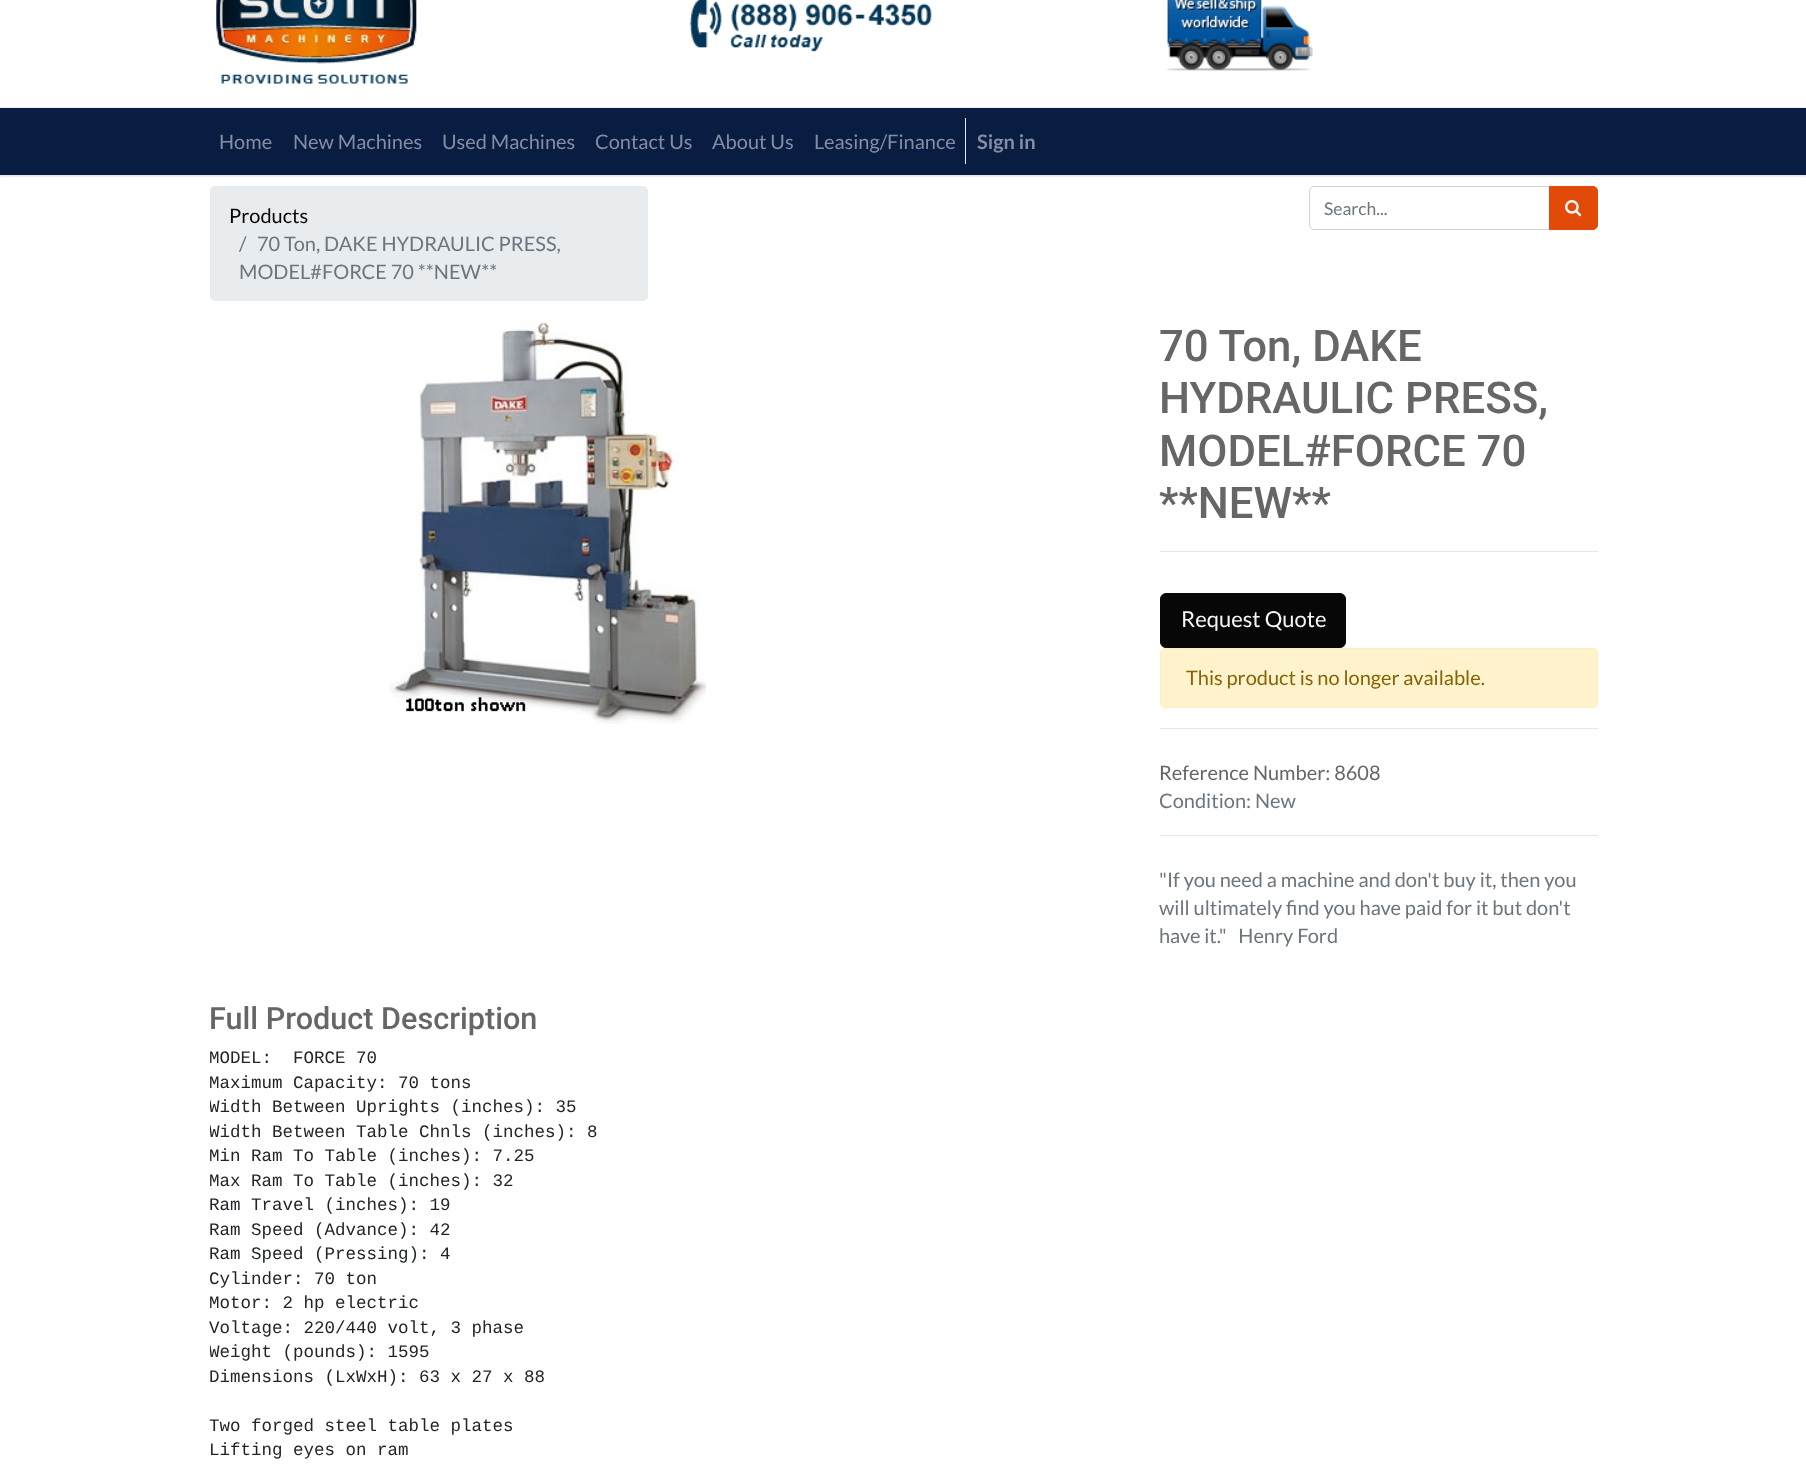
<!DOCTYPE html>
<meta charset="utf-8">
<style>body { margin: 0 } canvas { display: block }</style>
<canvas id="canvas" width="1806" height="1464"></canvas>
<script type="module">
  const canvas = document.getElementById("canvas");
  const g = canvas.getContext("2d");
  g.miterLimit = 4;
  g.fontKerning = "normal";
  function drawText(s, x, y, [font, color]) {
    g.font = font;
    g.fillStyle = color;
    g.fillText(s, x, y);
  }
  function fillBox(x, y, w, h, color) {
    g.fillStyle = color;
    g.fillRect(x, y, w, h);
  }
  function fillRounded(x, y, w, h, r, color) {
    g.fillStyle = color;
    g.beginPath();
    g.roundRect(x, y, w, h, r);
    g.fill();
  }
  async function drawPicture(src, x, y, w, h) {
    const img = new Image();
    img.src = src;
    await img.decode();
    g.drawImage(img, x, y, w, h);
  }

  const s1 = ["20px Lato", "#848EA1"];
  const s2 = ["bold 20px Lato", "#848EA1"];
  const s3 = ["20px Lato", "#070707"];
  const s4 = ["20px Lato", "#6C757D"];
  const s5 = ["17.5px Lato", "#6C757D"];
  const s6 = ["500 43.75px Roboto", "#666666"];
  const s7 = ["22px Lato", "#F5F5F8"];
  const s8 = ["20px Lato", "#856404"];
  const s9 = ["20px Lato", "#666666"];
  const s10 = ["500 30.6px Roboto", "#666666"];
  const s11 = ["17.5px Liberation Mono", "#212529"];

  fillBox(0, 0, 1806, 1464, "#FFFFFF");
  await drawPicture("pic1.png", 216, 0, 201, 84);
  await drawPicture("pic2.png", 689, 0, 243, 52);
  await drawPicture("pic3.png", 1166, 0, 147, 71);
  g.fillStyle = "rgba(0, 0, 0, 0.2)";
  g.filter = "blur(1px)";
  g.beginPath();
  g.rect(0, 108, 1806, 68);
  g.fill();
  g.filter = "none";
  fillBox(0, 175, 1806, 1, "#E6E6E6");
  fillBox(0, 108, 1806, 67, "#091D43");
  drawText("Home", 219, 149, s1);
  drawText("New Machines", 293, 149, s1);
  drawText("Used Machines", 442, 149, s1);
  drawText("Contact Us", 595, 149, s1);
  drawText("About Us", 712, 149, s1);
  drawText("Leasing/Finance", 814, 149, s1);
  fillBox(965, 118, 1, 46, "#E9ECEF");
  drawText("Sign in", 977, 149, s2);
  fillRounded(210, 186, 438, 115, 5, "#E9ECEF");
  drawText("Products", 229, 223, s3);
  drawText("/", 239, 251, s4);
  drawText("70 Ton, DAKE HYDRAULIC PRESS,", 257, 251, s4);
  drawText("MODEL#FORCE 70 **NEW**", 239, 279, s4);
  g.beginPath();
  g.roundRect(1309.5, 186.5, 240, 43, [4.5, 0, 0, 4.5]);
  g.strokeStyle = "#CED4DA";
  g.stroke();
  drawText("Search...", 1324, 215, s5);
  g.fillStyle = "#E14A09";
  g.beginPath();
  g.roundRect(1549.5, 186.5, 48, 43, [0, 4.5, 4.5, 0]);
  g.fill();
  g.strokeStyle = "#E14A09";
  g.stroke();
  await drawPicture("pic4.png", 1565, 200, 17, 17);
  await drawPicture("pic5.png", 389, 321, 317, 403);
  drawText("70 Ton, DAKE", 1159, 361, s6);
  drawText("HYDRAULIC PRESS,", 1159, 413, s6);
  drawText("MODEL#FORCE 70", 1159, 466, s6);
  drawText("**NEW**", 1159, 518, s6);
  fillBox(1160, 551, 438, 1, "#E6E6E6");
  g.fillStyle = "#070707";
  g.beginPath();
  g.roundRect(1160.5, 593.5, 185, 54, 5.5);
  g.fill();
  g.strokeStyle = "#070707";
  g.stroke();
  drawText("Request Quote", 1181, 627, s7);
  g.fillStyle = "#FFF3CD";
  g.beginPath();
  g.roundRect(1160.5, 648.5, 437, 59, 4.5);
  g.fill();
  g.strokeStyle = "#FFEEBA";
  g.stroke();
  drawText("This product is no longer available.", 1186, 685, s8);
  fillBox(1160, 728, 438, 1, "#E6E6E6");
  drawText("Reference Number: 8608", 1159, 780, s9);
  drawText("Condition: New", 1159, 808, s4);
  fillBox(1160, 835, 438, 1, "#E6E6E6");
  drawText("\"If you need a machine and don't buy it, then you", 1159, 887, s4);
  drawText("will ultimately find you have paid for it but don't", 1159, 915, s4);
  drawText("have it.\"   Henry Ford", 1159, 943, s4);
  drawText("Full Product Description", 209, 1029, s10);
  drawText("MODEL:  FORCE 70", 209, 1063, s11);
  drawText("Maximum Capacity: 70 tons", 209, 1088, s11);
  g.save();
  g.beginPath();
  g.rect(210, 1048, 1388, 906);
  g.clip();
  drawText("Width Between Uprights (inches): 35", 209, 1112, s11);
  drawText("Width Between Table Chnls (inches): 8", 209, 1137, s11);
  g.restore();
  drawText("Min Ram To Table (inches): 7.25", 209, 1161, s11);
  drawText("Max Ram To Table (inches): 32", 209, 1186, s11);
  drawText("Ram Travel (inches): 19", 209, 1210, s11);
  drawText("Ram Speed (Advance): 42", 209, 1235, s11);
  drawText("Ram Speed (Pressing): 4", 209, 1259, s11);
  drawText("Cylinder: 70 ton", 209, 1284, s11);
  drawText("Motor: 2 hp electric", 209, 1308, s11);
  drawText("Voltage: 220/440 volt, 3 phase", 209, 1333, s11);
  g.save();
  g.beginPath();
  g.rect(210, 1048, 1388, 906);
  g.clip();
  drawText("Weight (pounds): 1595", 209, 1357, s11);
  g.restore();
  drawText("Dimensions (LxWxH): 63 x 27 x 88", 209, 1382, s11);
  drawText("Two forged steel table plates", 209, 1431, s11);
  drawText("Lifting eyes on ram", 209, 1455, s11);
</script>
